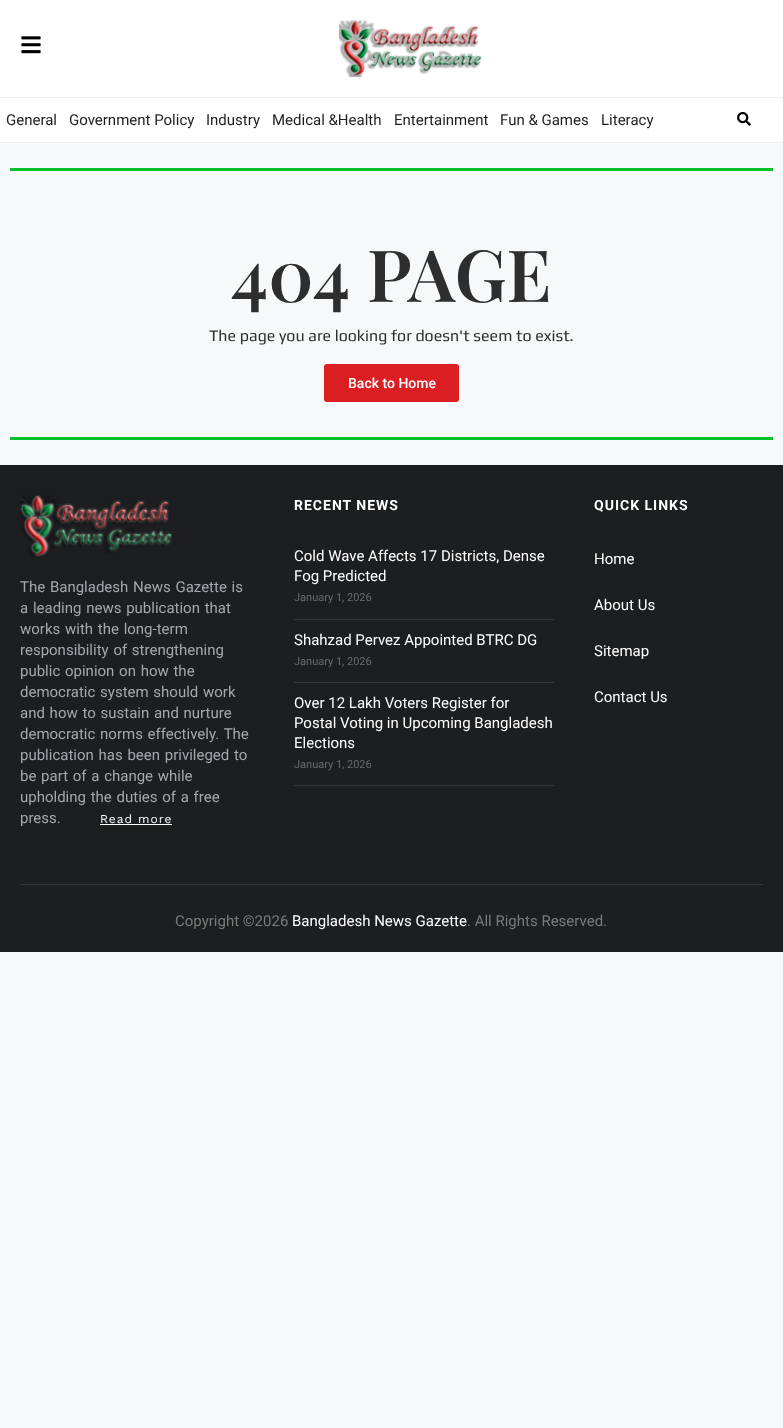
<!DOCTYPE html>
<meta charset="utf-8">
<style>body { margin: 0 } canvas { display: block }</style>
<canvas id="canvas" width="783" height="1428"></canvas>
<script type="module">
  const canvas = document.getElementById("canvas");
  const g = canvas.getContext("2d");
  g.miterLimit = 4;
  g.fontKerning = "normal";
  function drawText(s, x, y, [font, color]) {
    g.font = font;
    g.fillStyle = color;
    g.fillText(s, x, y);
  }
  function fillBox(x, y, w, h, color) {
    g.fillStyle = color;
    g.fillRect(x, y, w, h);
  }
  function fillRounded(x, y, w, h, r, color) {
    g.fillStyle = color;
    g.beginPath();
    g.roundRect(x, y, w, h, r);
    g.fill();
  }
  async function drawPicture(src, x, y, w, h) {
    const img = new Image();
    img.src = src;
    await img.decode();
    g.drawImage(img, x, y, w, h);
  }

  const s1 = ["15px Roboto", "#1D1E20"];
  const s2 = ["600 72px Playfair Display", "#2E2E2E"];
  const s3 = ["16px Play", "#2E2E2E"];
  const s4 = ["500 14px Roboto", "#FFFFFF"];
  const s5 = ["15px Roboto", "#A5A7AC"];
  const s6 = ["12px Work Sans", "#FFFFFF"];
  const s7 = ["bold 14px Roboto", "#FFFFFF"];
  const s8 = ["15px Roboto", "#FFFFFF"];
  const s9 = ["11px Roboto", "#696B6F"];
  const s10 = ["15px Roboto", "#7A7A7A"];

  fillBox(0, 0, 783, 1428, "#F7F8F9");
  fillBox(0, 0, 783, 97, "#FFFFFF");
  await drawPicture("pic1.png", 21, 36, 20, 18);
  await drawPicture("pic2.png", 339, 20, 143, 57);
  fillBox(0, 98, 783, 44, "#FFFFFF");
  fillBox(0, 97, 783, 1, "#EFEFEF");
  fillBox(0, 142, 783, 1, "#EFEFEF");
  drawText("General", 6, 125, s1);
  drawText("Government Policy", 69, 125, s1);
  drawText("Industry", 206, 125, s1);
  drawText("Medical &Health", 272, 125, s1);
  drawText("Entertainment", 394, 125, s1);
  drawText("Fun & Games", 500, 125, s1);
  drawText("Literacy", 601, 125, s1);
  await drawPicture("pic3.png", 737, 111, 14, 15);
  fillBox(10, 168, 763, 3, "#08C029");
  drawText("404 PAGE", 231, 302, s2);
  drawText("The page you are looking for doesn't seem to exist.", 209, 341, s3);
  fillRounded(324, 364, 135, 38, 3, "#DB1E21");
  drawText("Back to Home", 348, 388, s4);
  fillBox(10, 437, 763, 3, "#08C029");
  fillBox(0, 465, 783, 487, "#1D1E20");
  await drawPicture("pic4.png", 20, 495, 152, 62);
  g.wordSpacing = "1px";
  drawText("The Bangladesh News Gazette is", 20, 592, s5);
  drawText("a leading news publication that", 20, 613, s5);
  drawText("works with the long-term", 20, 634, s5);
  drawText("responsibility of strengthening", 20, 655, s5);
  drawText("public opinion on how the", 20, 676, s5);
  drawText("democratic system should work", 20, 697, s5);
  drawText("and how to sustain and nurture", 20, 718, s5);
  drawText("democratic norms effectively. The", 20, 739, s5);
  drawText("publication has been privileged to", 20, 760, s5);
  drawText("be part of a change while", 20, 781, s5);
  drawText("upholding the duties of a free", 20, 802, s5);
  g.wordSpacing = "0px";
  drawText("press.", 20, 823, s5);
  g.letterSpacing = "1px";
  drawText("Read more", 100, 823, s6);
  fillBox(100, 824, 72, 1, "#FFFFFF");
  drawText("RECENT NEWS", 294, 510, s7);
  fillBox(294, 619, 260, 1, "#343537");
  g.letterSpacing = "0px";
  drawText("Cold Wave Affects 17 Districts, Dense", 294, 561, s8);
  drawText("Fog Predicted", 294, 581, s8);
  drawText("January 1, 2026", 294, 601, s9);
  fillBox(294, 682, 260, 1, "#343537");
  drawText("Shahzad Pervez Appointed BTRC DG", 294, 645, s8);
  drawText("January 1, 2026", 294, 665, s9);
  fillBox(294, 785, 260, 1, "#343537");
  drawText("Over 12 Lakh Voters Register for", 294, 708, s8);
  drawText("Postal Voting in Upcoming Bangladesh", 294, 728, s8);
  drawText("Elections", 294, 748, s8);
  drawText("January 1, 2026", 294, 768, s9);
  g.letterSpacing = "1px";
  drawText("QUICK LINKS", 594, 510, s7);
  g.letterSpacing = "0px";
  drawText("Home", 594, 564, s8);
  drawText("About Us", 594, 610, s8);
  drawText("Sitemap", 594, 656, s8);
  drawText("Contact Us", 594, 702, s8);
  fillBox(20, 884, 743, 1, "#343537");
  drawText("Copyright ©2026", 175, 926, s10);
  drawText("Bangladesh News Gazette", 292, 926, s8);
  drawText(". All Rights Reserved.", 467, 926, s10);
</script>
